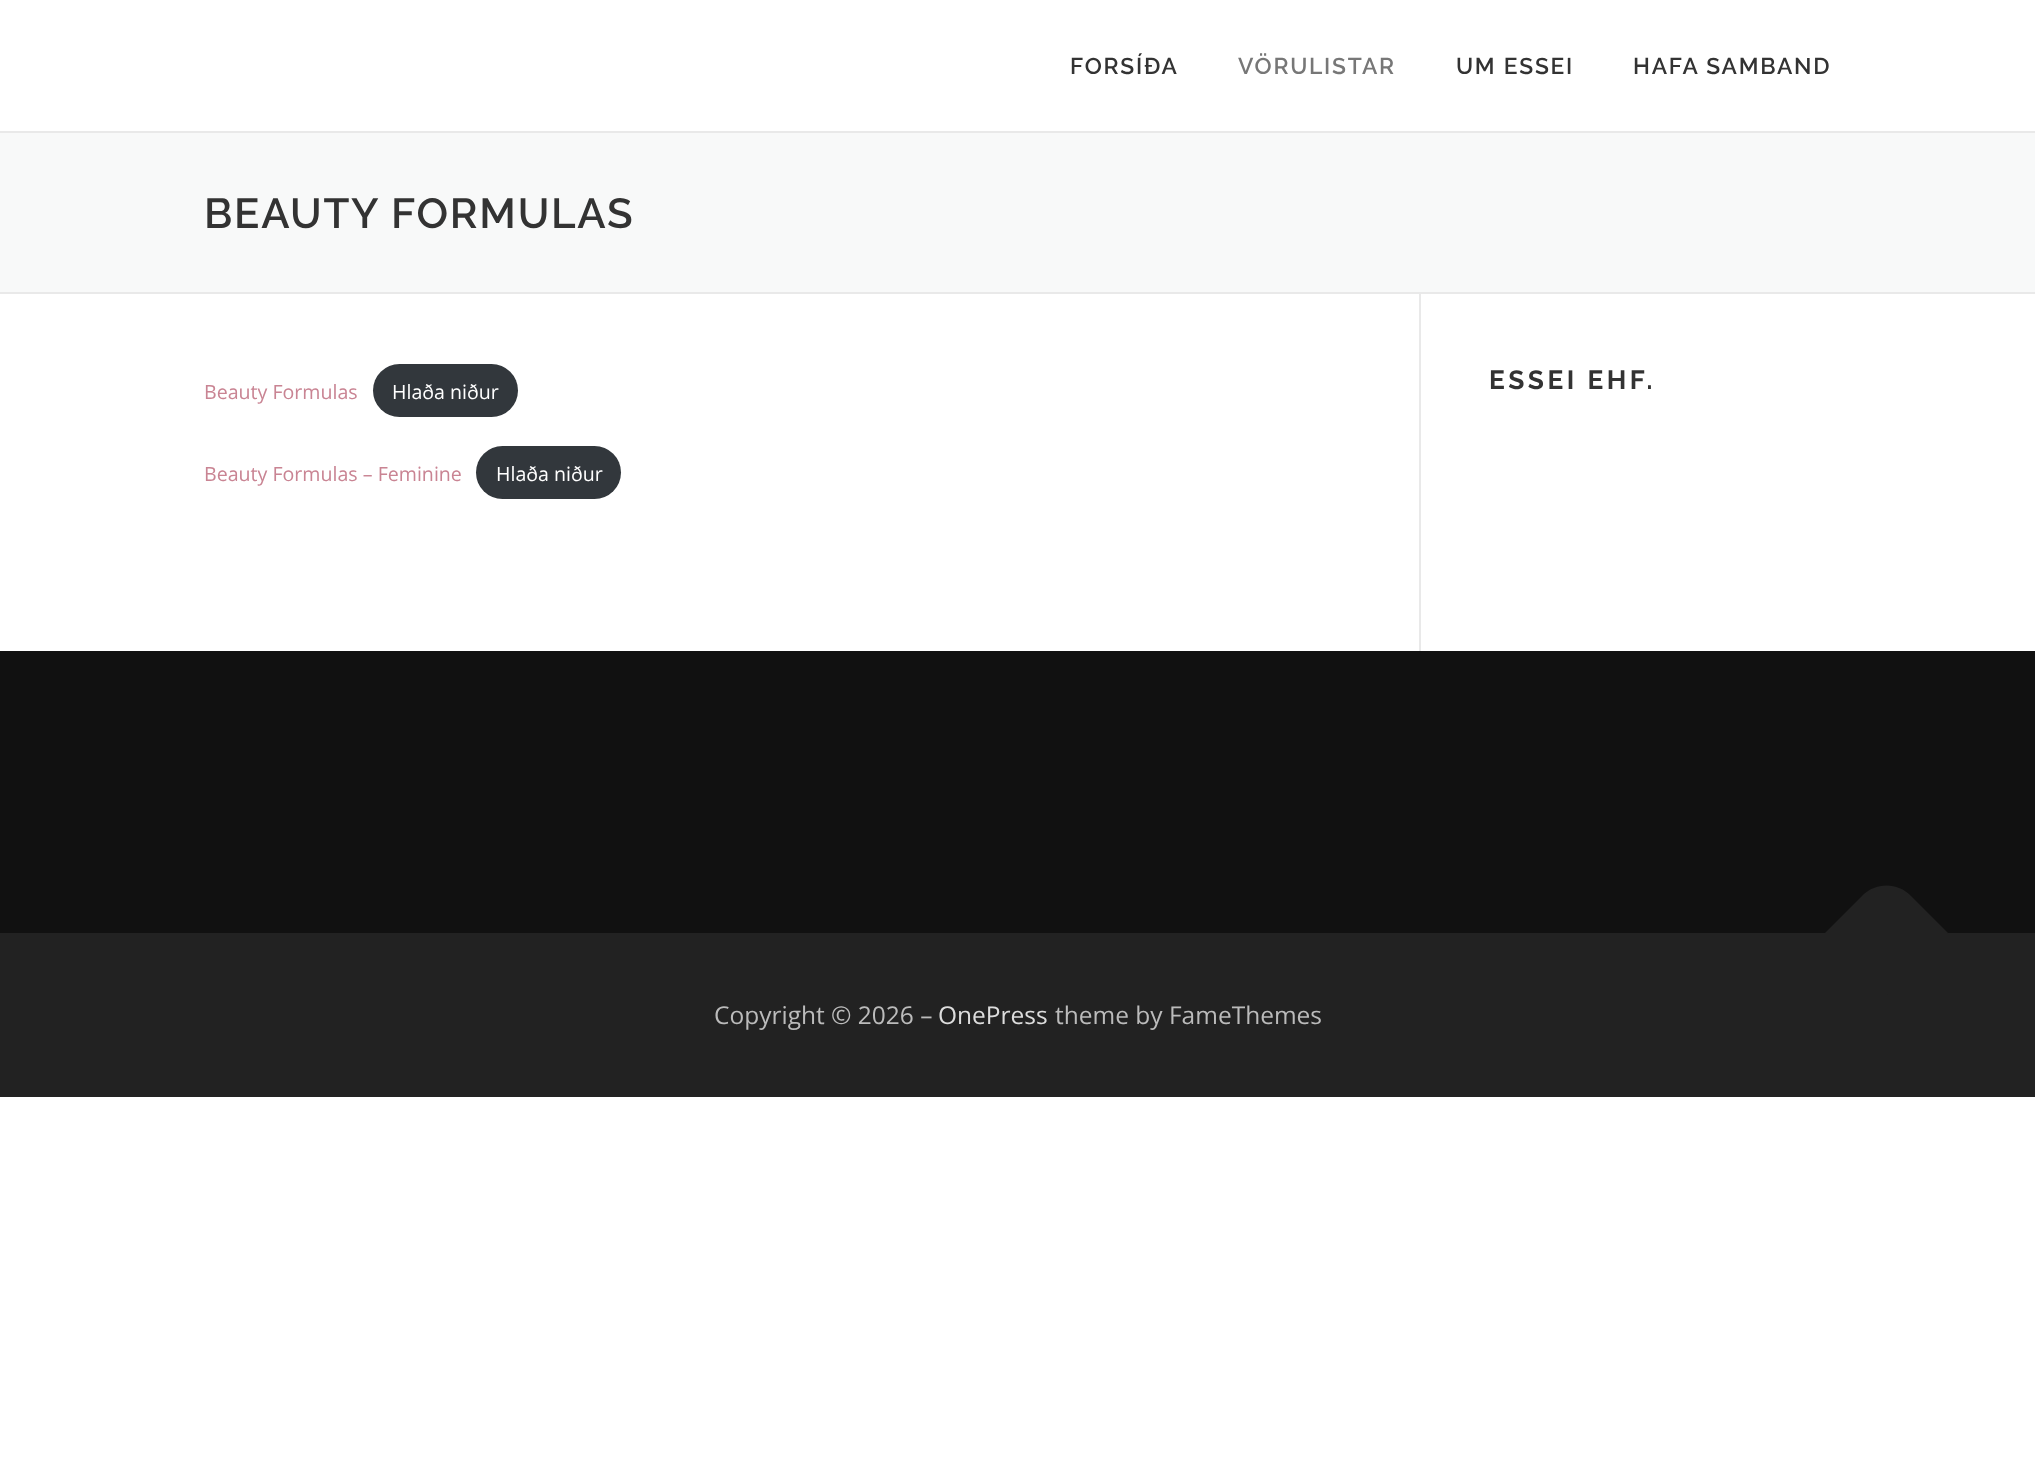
<!DOCTYPE html>
<meta charset="utf-8">
<style>body { margin: 0 } canvas { display: block }</style>
<canvas id="canvas" width="2035" height="1461"></canvas>
<script type="module">
  const canvas = document.getElementById("canvas");
  const g = canvas.getContext("2d");
  g.miterLimit = 4;
  g.fontKerning = "normal";
  function drawText(s, x, y, [font, color]) {
    g.font = font;
    g.fillStyle = color;
    g.fillText(s, x, y);
  }
  function fillBox(x, y, w, h, color) {
    g.fillStyle = color;
    g.fillRect(x, y, w, h);
  }
  function fillRounded(x, y, w, h, r, color) {
    g.fillStyle = color;
    g.beginPath();
    g.roundRect(x, y, w, h, r);
    g.fill();
  }

  const s1 = ["600 22.75px Raleway", "#333333"];
  const s2 = ["600 22.75px Raleway", "#777777"];
  const s3 = ["600 42px Raleway", "#333333"];
  const s4 = ["bold 26.25px Raleway", "#333333"];
  const s5 = ["19.6px Open Sans", "#C98493"];
  const s6 = ["19.6px Open Sans", "#FFFFFF"];
  const s7 = ["24.5px Open Sans", "#BBBBBB"];
  const s8 = ["24.5px Open Sans", "#DDDDDD"];

  fillBox(0, 0, 2035, 1461, "#FFFFFF");
  g.letterSpacing = "1.75px";
  drawText("FORSÍÐA", 1070, 74, s1);
  drawText("VÖRULISTAR", 1238, 74, s2);
  drawText("UM ESSEI", 1456, 74, s1);
  drawText("HAFA SAMBAND", 1633, 74, s1);
  fillBox(0, 133, 2035, 159, "#F8F9F9");
  fillBox(0, 131, 2035, 2, "#E9E9E9");
  fillBox(0, 292, 2035, 2, "#E9E9E9");
  drawText("BEAUTY FORMULAS", 204, 228, s3);
  g.letterSpacing = "3.5px";
  drawText("ESSEI EHF.", 1489, 389, s4);
  fillBox(1419, 294, 2, 357, "#E9E9E9");
  g.letterSpacing = "0px";
  drawText("Beauty Formulas", 204, 399, s5);
  fillRounded(373, 364, 145, 53, 26.5, "#32373C");
  drawText("Hlaða niður", 392, 399, s6);
  drawText("Beauty Formulas – Feminine", 204, 481, s5);
  fillRounded(476, 446, 145, 53, 26.5, "#32373C");
  drawText("Hlaða niður", 496, 481, s6);
  fillBox(0, 651, 2035, 282, "#111111");
  fillBox(0, 933, 2035, 164, "#222222");
  g.beginPath();
  g.moveTo(1825, 933);
  g.lineTo(1862, 896);
  g.bezierCurveTo(1875, 882, 1898, 882, 1911, 896);
  g.lineTo(1948, 933);
  g.lineTo(1887, 995);
  g.closePath();
  g.fill();
  drawText("Copyright © 2026 –", 714, 1024, s7);
  drawText("OnePress", 938, 1024, s8);
  drawText("theme by FameThemes", 1055, 1024, s7);
</script>
